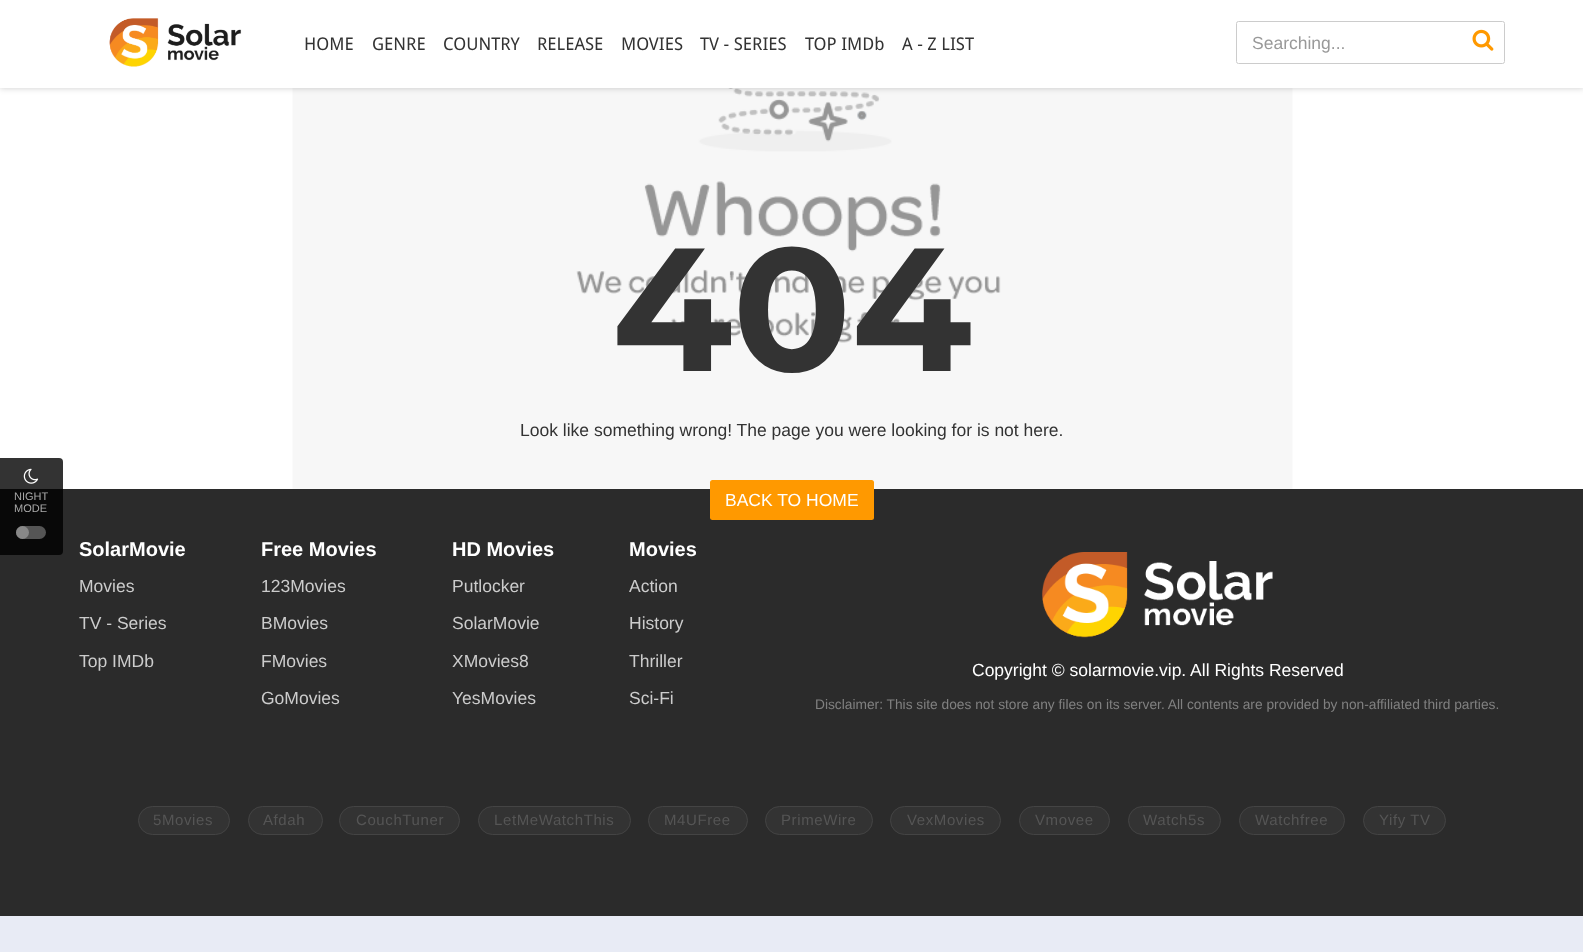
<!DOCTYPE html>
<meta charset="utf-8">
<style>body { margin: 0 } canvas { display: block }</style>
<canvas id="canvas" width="1583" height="952"></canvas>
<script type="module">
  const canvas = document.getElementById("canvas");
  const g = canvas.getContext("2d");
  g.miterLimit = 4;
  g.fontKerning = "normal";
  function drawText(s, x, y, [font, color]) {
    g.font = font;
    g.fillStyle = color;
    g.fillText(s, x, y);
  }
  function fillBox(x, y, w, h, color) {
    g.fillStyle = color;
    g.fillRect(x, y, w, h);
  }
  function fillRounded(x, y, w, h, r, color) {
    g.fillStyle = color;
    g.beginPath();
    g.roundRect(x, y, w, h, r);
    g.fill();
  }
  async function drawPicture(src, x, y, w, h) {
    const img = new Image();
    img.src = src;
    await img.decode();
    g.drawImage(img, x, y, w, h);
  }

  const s1 = ["17.5px Droid Sans", "#333333"];
  const s2 = ["17.5px Liberation Sans", "#999999"];
  const s3 = ["11px Liberation Sans", "#AAAAAA"];
  const s4 = ["bold 175px Montserrat", "#333333"];
  const s5 = ["17.5px Liberation Sans", "#333333"];
  const s6 = ["17.5px Liberation Sans", "#FFFFFF"];
  const s7 = ["bold 20px Liberation Sans", "#FFFFFF"];
  const s8 = ["17.5px Liberation Sans", "#CCCCCC"];
  const s9 = ["13.75px Liberation Sans", "#808080"];
  const s10 = ["15px Liberation Sans", "#555555"];

  fillBox(0, 0, 1583, 952, "#E8EBF5");
  fillBox(0, 88, 1583, 401, "#FFFFFF");
  await drawPicture("pic4.png", 292, 88, 1001, 401);
  g.fillStyle = "rgba(0, 0, 0, 0.2)";
  g.filter = "blur(3px)";
  g.beginPath();
  g.rect(0, 0, 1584, 88);
  g.fill();
  g.filter = "none";
  fillBox(0, 0, 1583, 88, "#FFFFFF");
  await drawPicture("pic1.png", 109, 18, 133, 49);
  drawText("HOME", 304, 50, s1);
  drawText("GENRE", 372, 50, s1);
  drawText("COUNTRY", 443, 50, s1);
  drawText("RELEASE", 537, 50, s1);
  drawText("MOVIES", 621, 50, s1);
  drawText("TV - SERIES", 700, 50, s1);
  drawText("TOP IMDb", 805, 50, s1);
  drawText("A - Z LIST", 902, 50, s1);
  g.beginPath();
  g.roundRect(1236.5, 21.5, 268, 42, 2);
  g.strokeStyle = "#CCCCCC";
  g.stroke();
  drawText("Searching...", 1252, 49, s2);
  await drawPicture("pic2.png", 1472, 29, 22, 22);
  fillBox(0, 489, 1583, 427, "#2B2B2B");
  g.fillStyle = "rgba(0, 0, 0, 0.8)";
  g.beginPath();
  g.roundRect(0, 458, 63, 97, [0, 4, 4, 0]);
  g.fill();
  await drawPicture("pic3.png", 23, 468, 16, 16);
  drawText("NIGHT", 14, 500, s3);
  drawText("MODE", 14, 512, s3);
  fillRounded(16, 526, 30, 13, 6.5, "#555555");
  g.fillStyle = "#888888";
  g.beginPath();
  g.arc(22.5, 532.5, 6.5, 0, Math.PI * 2);
  g.fill();
  drawText("404", 612, 371, s4);
  drawText("Look like something wrong! The page you were looking for is not here.", 520, 436, s5);
  fillRounded(710, 480, 164, 40, 2.5, "#FF9900");
  drawText("BACK TO HOME", 725, 506, s6);
  drawText("SolarMovie", 79, 556, s7);
  drawText("Movies", 79, 592, s8);
  drawText("TV - Series", 79, 629, s8);
  drawText("Top IMDb", 79, 667, s8);
  drawText("Free Movies", 261, 556, s7);
  drawText("123Movies", 261, 592, s8);
  drawText("BMovies", 261, 629, s8);
  drawText("FMovies", 261, 667, s8);
  drawText("GoMovies", 261, 704, s8);
  drawText("HD Movies", 452, 556, s7);
  drawText("Putlocker", 452, 592, s8);
  drawText("SolarMovie", 452, 629, s8);
  drawText("XMovies8", 452, 667, s8);
  drawText("YesMovies", 452, 704, s8);
  drawText("Movies", 629, 556, s7);
  drawText("Action", 629, 592, s8);
  drawText("History", 629, 629, s8);
  drawText("Thriller", 629, 667, s8);
  drawText("Sci-Fi", 629, 704, s8);
  await drawPicture("pic5.png", 1042, 552, 231, 86);
  drawText("Copyright © solarmovie.vip. All Rights Reserved", 972, 676, s6);
  drawText("Disclaimer: This site does not store any files on its server. All contents are provided by non-affiliated third parties.", 815, 709, s9);
  g.fillStyle = "#333333";
  g.beginPath();
  g.roundRect(138.5, 806.5, 91, 28, 14);
  g.fill();
  g.strokeStyle = "#444444";
  g.stroke();
  g.letterSpacing = "0.6px";
  drawText("5Movies", 153, 825, s10);
  g.fillStyle = "#333333";
  g.beginPath();
  g.roundRect(248.5, 806.5, 74, 28, 14);
  g.fill();
  g.stroke();
  drawText("Afdah", 263, 825, s10);
  g.fillStyle = "#333333";
  g.beginPath();
  g.roundRect(339.5, 806.5, 120, 28, 14);
  g.fill();
  g.stroke();
  drawText("CouchTuner", 356, 825, s10);
  g.fillStyle = "#333333";
  g.beginPath();
  g.roundRect(478.5, 806.5, 152, 28, 14);
  g.fill();
  g.stroke();
  drawText("LetMeWatchThis", 494, 825, s10);
  g.fillStyle = "#333333";
  g.beginPath();
  g.roundRect(648.5, 806.5, 99, 28, 14);
  g.fill();
  g.stroke();
  drawText("M4UFree", 664, 825, s10);
  g.fillStyle = "#333333";
  g.beginPath();
  g.roundRect(765.5, 806.5, 107, 28, 14);
  g.fill();
  g.stroke();
  drawText("PrimeWire", 781, 825, s10);
  g.fillStyle = "#333333";
  g.beginPath();
  g.roundRect(890.5, 806.5, 110, 28, 14);
  g.fill();
  g.stroke();
  drawText("VexMovies", 907, 825, s10);
  g.fillStyle = "#333333";
  g.beginPath();
  g.roundRect(1019.5, 806.5, 90, 28, 14);
  g.fill();
  g.stroke();
  drawText("Vmovee", 1035, 825, s10);
  g.fillStyle = "#333333";
  g.beginPath();
  g.roundRect(1128.5, 806.5, 92, 28, 14);
  g.fill();
  g.stroke();
  drawText("Watch5s", 1143, 825, s10);
  g.fillStyle = "#333333";
  g.beginPath();
  g.roundRect(1239.5, 806.5, 105, 28, 14);
  g.fill();
  g.stroke();
  drawText("Watchfree", 1255, 825, s10);
  g.fillStyle = "#333333";
  g.beginPath();
  g.roundRect(1363.5, 806.5, 82, 28, 14);
  g.fill();
  g.stroke();
  drawText("Yify TV", 1379, 825, s10);
</script>
